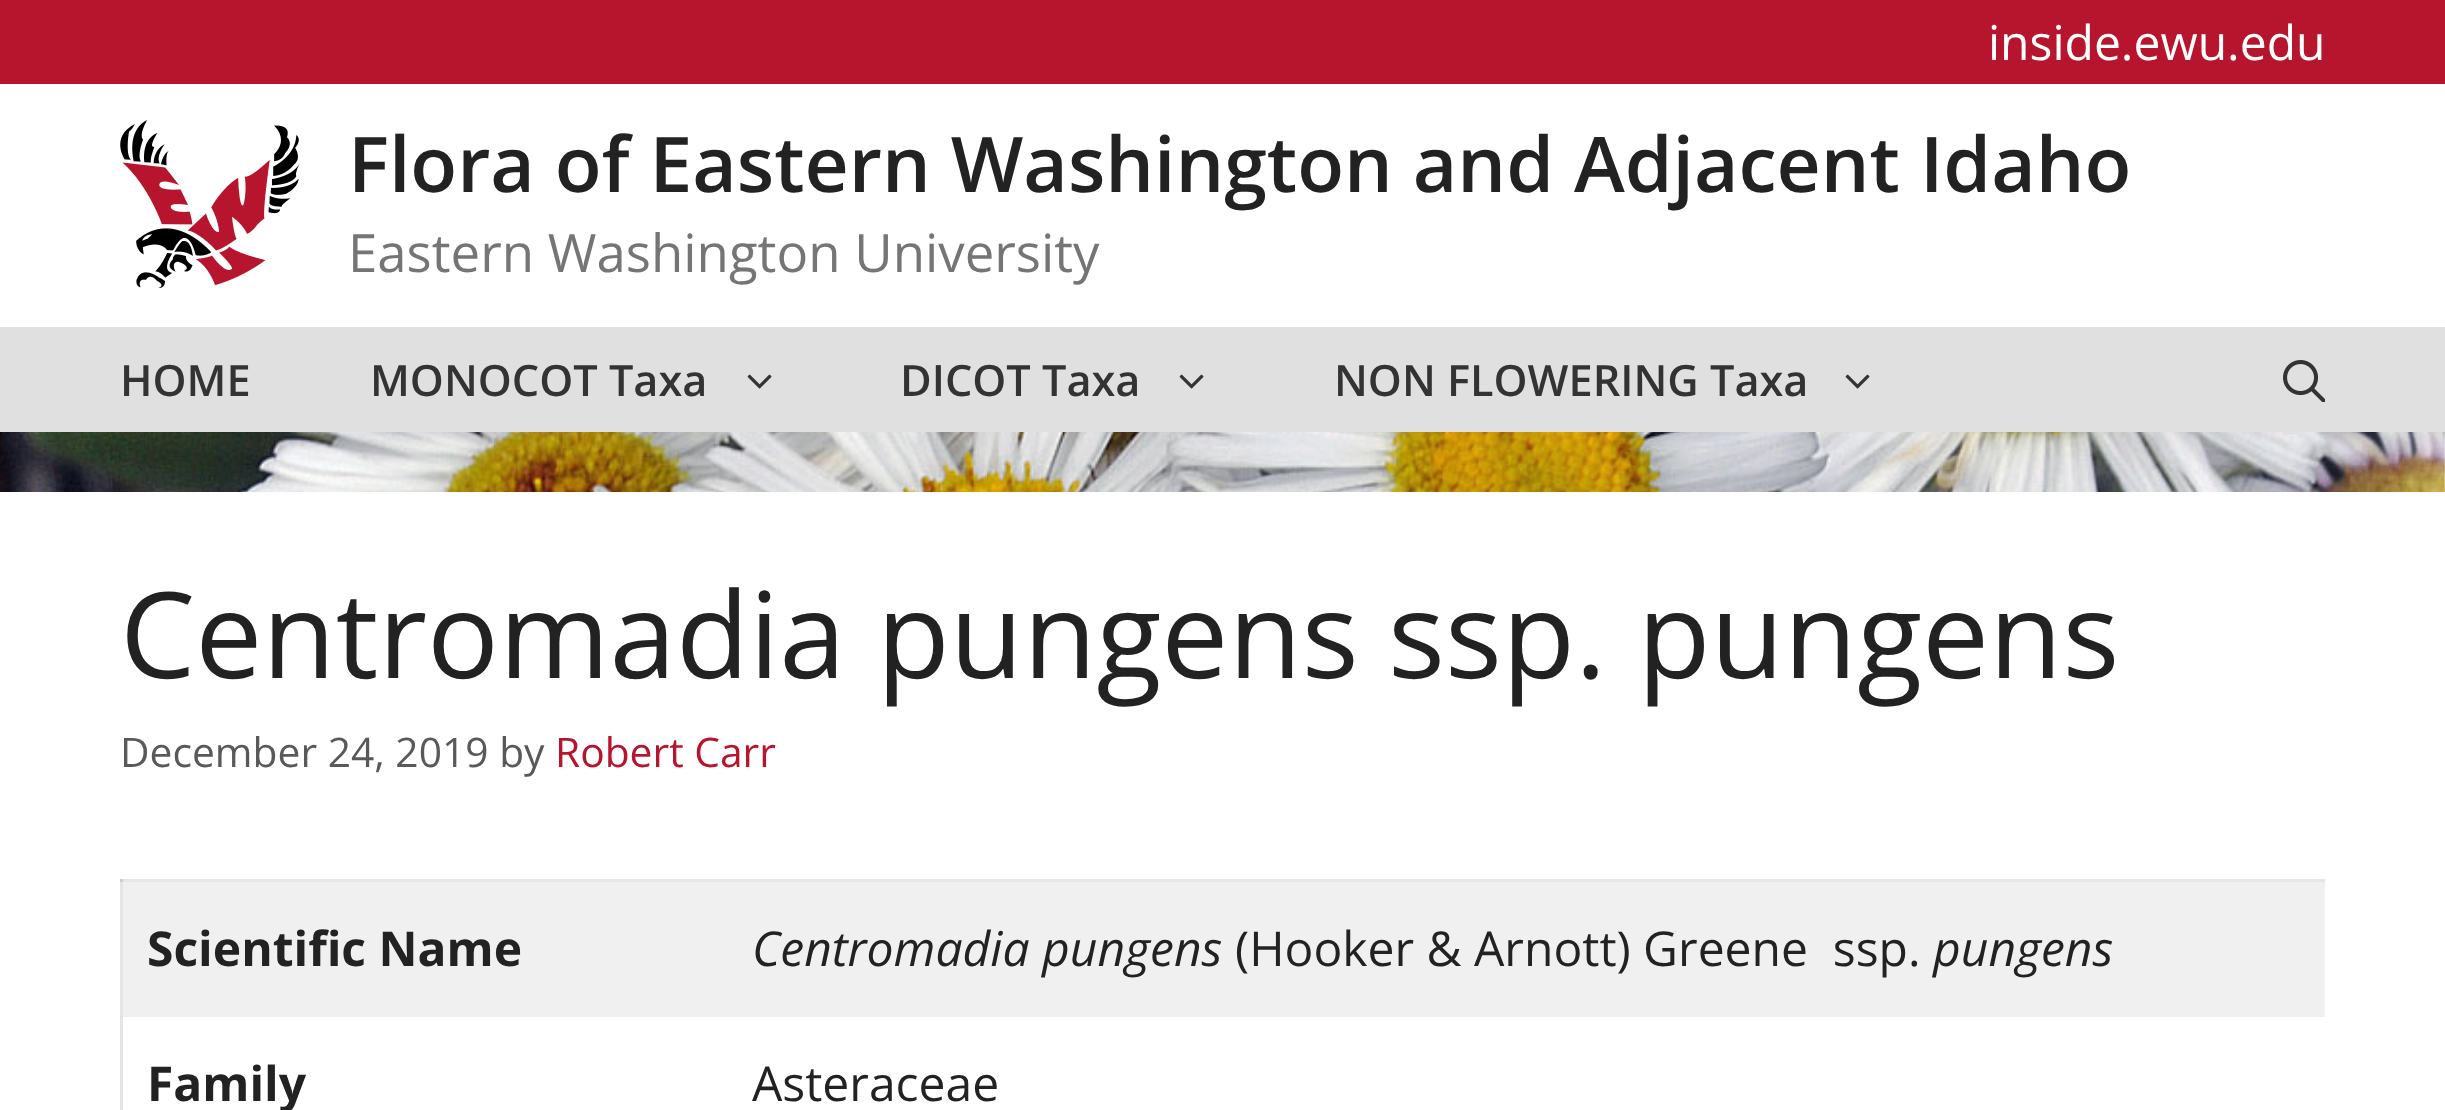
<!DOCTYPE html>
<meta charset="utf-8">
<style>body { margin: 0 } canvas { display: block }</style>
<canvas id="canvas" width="2445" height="1110"></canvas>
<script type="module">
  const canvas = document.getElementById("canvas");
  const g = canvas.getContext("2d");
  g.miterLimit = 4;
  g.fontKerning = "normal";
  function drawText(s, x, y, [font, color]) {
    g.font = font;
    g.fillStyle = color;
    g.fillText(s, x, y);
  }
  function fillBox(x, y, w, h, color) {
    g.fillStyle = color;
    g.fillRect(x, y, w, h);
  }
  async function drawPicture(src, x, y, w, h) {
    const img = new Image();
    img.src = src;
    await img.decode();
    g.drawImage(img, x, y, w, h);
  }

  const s1 = ["48px Open Sans", "#FFFFFF"];
  const s2 = ["600 76.8px Open Sans", "#222222"];
  const s3 = ["52.75px Open Sans", "#757575"];
  const s4 = ["600 43.25px Open Sans", "#333333"];
  const s5 = ["119.5px Open Sans", "#222222"];
  const s6 = ["40.75px Open Sans", "#595959"];
  const s7 = ["40.75px Open Sans", "#B7142E"];
  const s8 = ["bold 48px Open Sans", "#222222"];
  const s9 = ["italic 48px Open Sans", "#222222"];
  const s10 = ["48px Open Sans", "#222222"];

  fillBox(0, 0, 2445, 1110, "#FFFFFF");
  await drawPicture("pic1.png", 0, 432, 2445, 60);
  fillBox(0, 0, 2445, 84, "#B7142E");
  drawText("inside.ewu.edu", 1988, 60, s1);
  await drawPicture("pic2.png", 120, 120, 180, 168);
  drawText("Flora of Eastern Washington and Adjacent Idaho", 348, 192, s2);
  drawText("Eastern Washington University", 348, 272, s3);
  fillBox(0, 327, 2445, 105, "#E0E0E0");
  drawText("HOME", 120, 396, s4);
  drawText("MONOCOT Taxa", 370, 396, s4);
  await drawPicture("pic3.png", 747, 374, 25, 15);
  drawText("DICOT Taxa", 900, 396, s4);
  await drawPicture("pic3.png", 1179, 374, 25, 15);
  drawText("NON FLOWERING Taxa", 1334, 396, s4);
  await drawPicture("pic3.png", 1845, 374, 25, 15);
  await drawPicture("pic4.png", 2283, 360, 42, 42);
  drawText("Centromadia pungens", 120, 678, s5);
  drawText("ssp. pungens", 1388, 678, s5);
  drawText("December 24, 2019 by", 120, 767, s6);
  drawText("Robert Carr", 555, 767, s7);
  fillBox(120, 879, 2205, 3, "#E6E6E6");
  fillBox(120, 879, 3, 231, "rgba(0, 0, 0, 0.1)");
  fillBox(123, 882, 2202, 135, "#F0F0F0");
  drawText("Scientific Name", 147, 966, s8);
  drawText("Centromadia pungens", 752, 966, s9);
  drawText("(Hooker & Arnott) Greene  ssp.", 1235, 966, s10);
  drawText("pungens", 1933, 966, s9);
  drawText("Family", 147, 1101, s8);
  drawText("Asteraceae", 752, 1101, s10);
</script>
